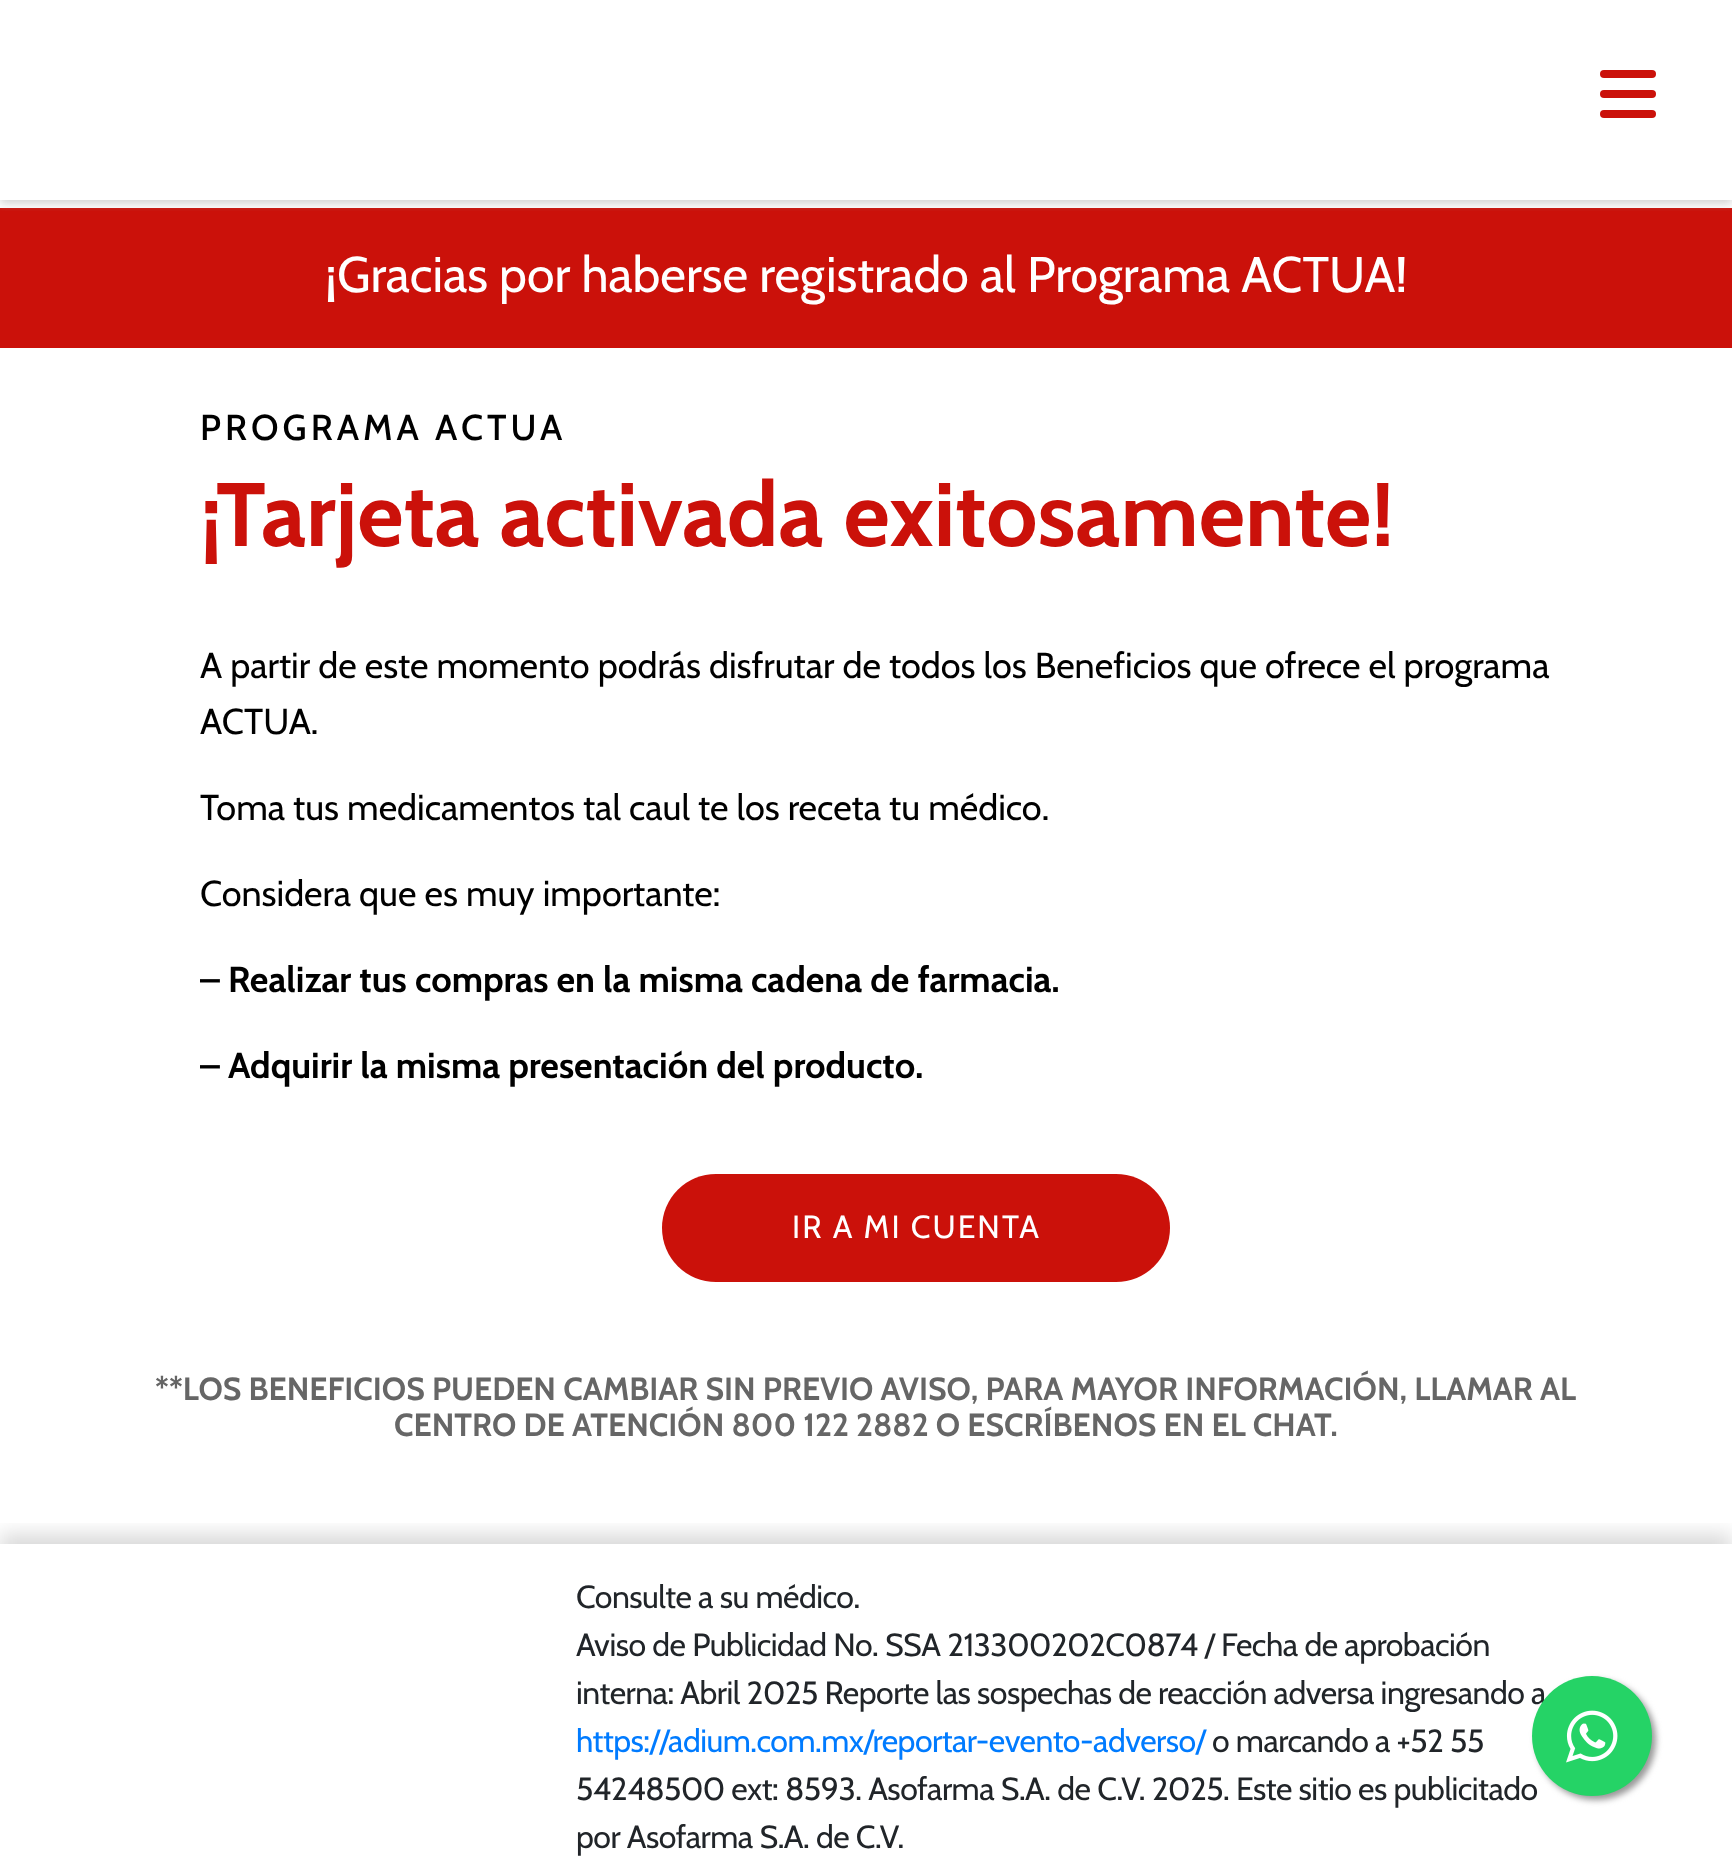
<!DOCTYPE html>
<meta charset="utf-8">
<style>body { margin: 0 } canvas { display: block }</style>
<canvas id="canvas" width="1732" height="1875"></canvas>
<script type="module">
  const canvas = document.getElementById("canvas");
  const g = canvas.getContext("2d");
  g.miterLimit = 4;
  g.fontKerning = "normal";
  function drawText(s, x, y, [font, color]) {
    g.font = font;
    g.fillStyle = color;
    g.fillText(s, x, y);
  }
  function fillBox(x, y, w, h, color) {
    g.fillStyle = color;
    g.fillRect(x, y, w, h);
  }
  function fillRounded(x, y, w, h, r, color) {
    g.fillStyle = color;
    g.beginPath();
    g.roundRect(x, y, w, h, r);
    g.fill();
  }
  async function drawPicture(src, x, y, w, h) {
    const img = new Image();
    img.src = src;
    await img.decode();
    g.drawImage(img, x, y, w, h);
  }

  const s1 = ["50px Cabin", "#FFFFFF"];
  const s2 = ["500 36px Cabin", "#000000"];
  const s3 = ["bold 90px Cabin", "#CB110A"];
  const s4 = ["36px Cabin", "#000000"];
  const s5 = ["bold 36px Cabin", "#000000"];
  const s6 = ["32px Cabin", "#FFFFFF"];
  const s7 = ["bold 32px Cabin", "#666666"];
  const s8 = ["32px Cabin", "#212529"];
  const s9 = ["32px Cabin", "#007BFF"];

  fillBox(0, 0, 1732, 1875, "#FFFFFF");
  fillBox(0, 208, 1732, 140, "#CB110A");
  g.save();
  g.beginPath();
  g.rect(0, 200, 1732, 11);
  g.clip();
  g.fillStyle = "rgba(169, 169, 169, 0.5)";
  g.filter = "blur(4px)";
  g.beginPath();
  g.rect(0, 4, 1732, 200);
  g.fill();
  g.filter = "none";
  g.restore();
  fillRounded(1600, 70, 56, 8, 4, "#CB110A");
  fillRounded(1600, 90, 56, 8, 4, "#CB110A");
  fillRounded(1600, 110, 56, 8, 4, "#CB110A");
  drawText("¡Gracias por haberse registrado al Programa ACTUA!", 325, 292, s1);
  g.letterSpacing = "4px";
  drawText("PROGRAMA ACTUA", 200, 440, s2);
  g.letterSpacing = "0px";
  drawText("¡Tarjeta activada exitosamente!", 200, 546, s3);
  drawText("A partir de este momento podrás disfrutar de todos los Beneficios que ofrece el programa", 200, 678, s4);
  drawText("ACTUA.", 200, 734, s4);
  drawText("Toma tus medicamentos tal caul te los receta tu médico.", 200, 820, s4);
  drawText("Considera que es muy importante:", 200, 906, s4);
  drawText("– Realizar tus compras en la misma cadena de farmacia.", 200, 992, s5);
  drawText("– Adquirir la misma presentación del producto.", 200, 1078, s5);
  fillRounded(662, 1174, 508, 108, 54, "#CB110A");
  g.letterSpacing = "2px";
  drawText("IR A MI CUENTA", 792, 1238, s6);
  g.letterSpacing = "0px";
  drawText("**LOS BENEFICIOS PUEDEN CAMBIAR SIN PREVIO AVISO, PARA MAYOR INFORMACIÓN, LLAMAR AL", 155, 1400, s7);
  drawText("CENTRO DE ATENCIÓN 800 122 2882 O ESCRÍBENOS EN EL CHAT.", 394, 1436, s7);
  g.save();
  g.beginPath();
  g.rect(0, 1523, 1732, 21);
  g.clip();
  g.fillStyle = "rgba(0, 0, 0, 0.15)";
  g.filter = "blur(10px)";
  g.beginPath();
  g.rect(0, 1534, 1732, 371);
  g.fill();
  g.filter = "none";
  g.restore();
  g.letterSpacing = "-0.48px";
  drawText("Consulte a su médico.", 576, 1608, s8);
  drawText("Aviso de Publicidad No. SSA 213300202C0874 / Fecha de aprobación", 576, 1656, s8);
  drawText("interna: Abril 2025 Reporte las sospechas de reacción adversa ingresando a", 576, 1704, s8);
  drawText("https://adium.com.mx/reportar-evento-adverso/", 576, 1752, s9);
  drawText("o marcando a +52 55", 1212, 1752, s8);
  drawText("54248500 ext: 8593. Asofarma S.A. de C.V. 2025. Este sitio es publicitado", 576, 1800, s8);
  drawText("por Asofarma S.A. de C.V.", 576, 1848, s8);
  g.fillStyle = "#999999";
  g.filter = "blur(3px)";
  g.beginPath();
  g.roundRect(1536, 1680, 120, 120, 60);
  g.fill();
  g.filter = "none";
  g.fillStyle = "#25D366";
  g.beginPath();
  g.arc(1592, 1736, 60, 0, Math.PI * 2);
  g.fill();
  await drawPicture("pic1.png", 1566, 1710, 52, 53);
</script>
